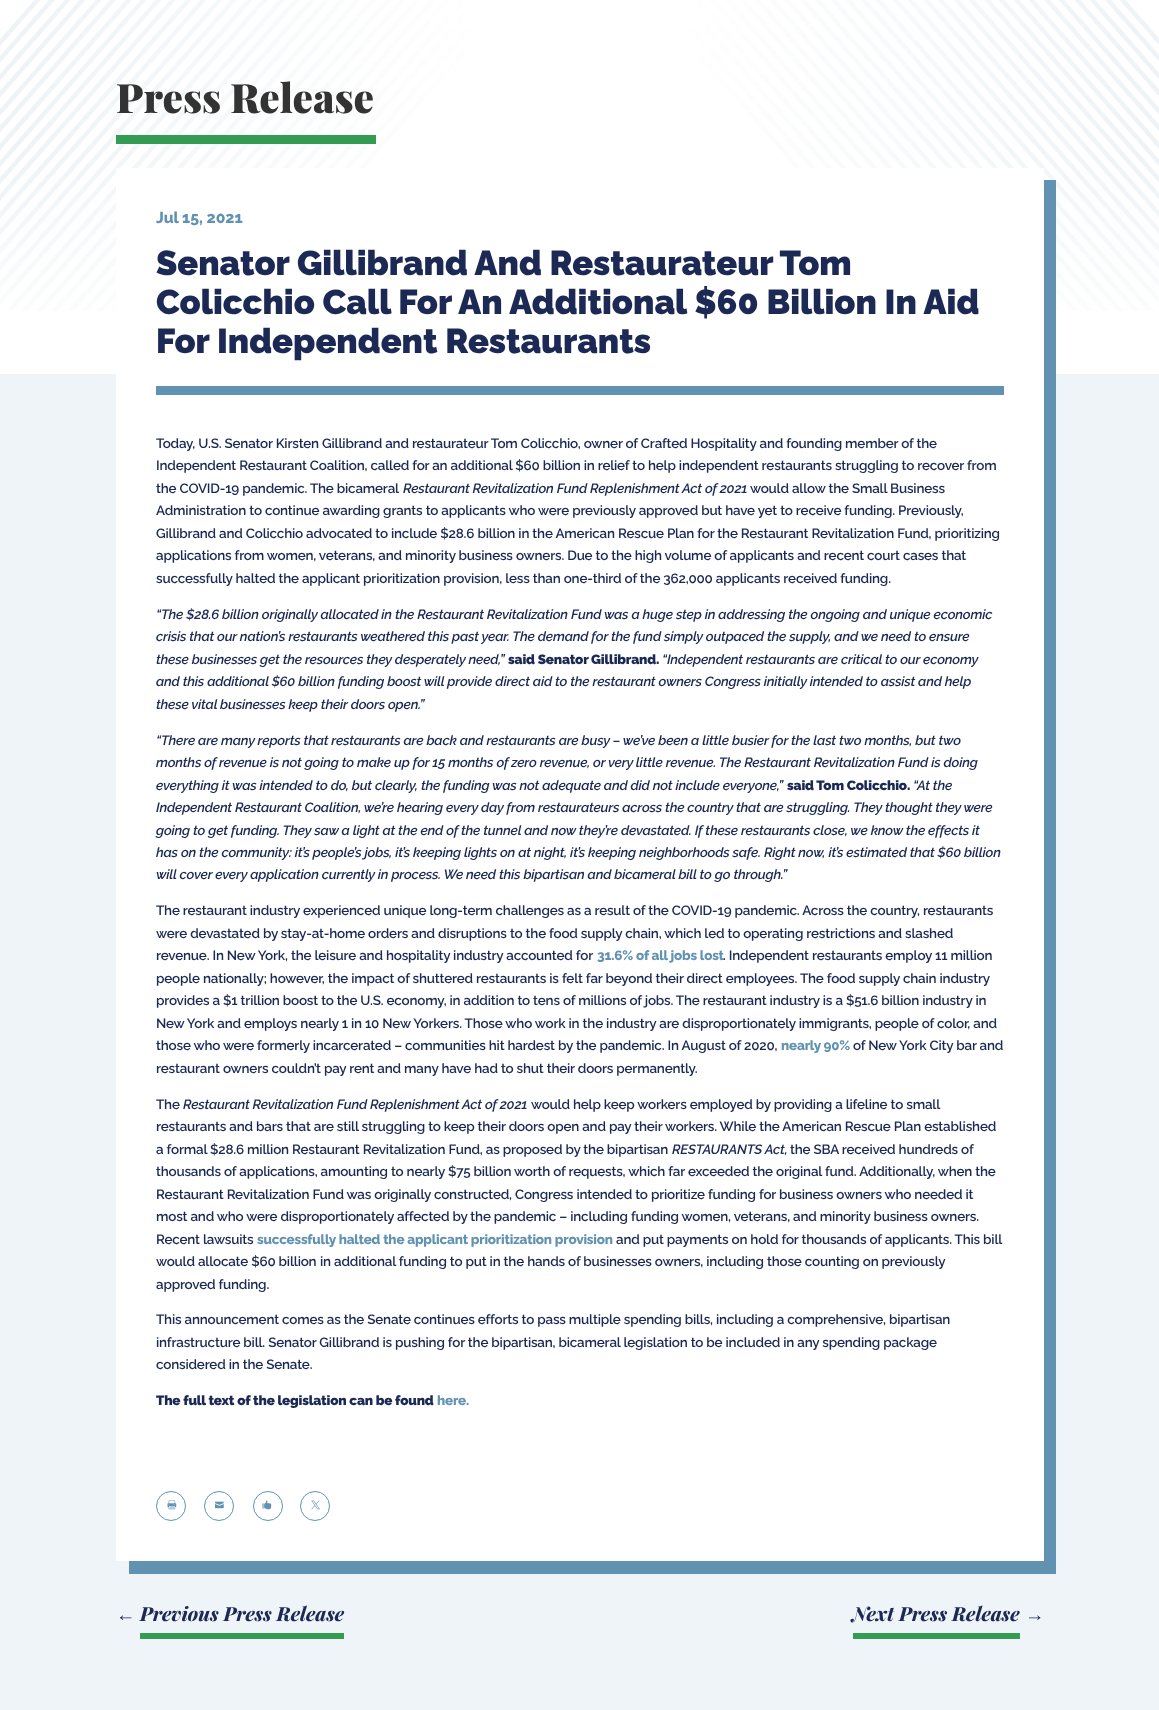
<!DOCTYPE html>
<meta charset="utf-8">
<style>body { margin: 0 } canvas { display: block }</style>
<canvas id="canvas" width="1159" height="1710"></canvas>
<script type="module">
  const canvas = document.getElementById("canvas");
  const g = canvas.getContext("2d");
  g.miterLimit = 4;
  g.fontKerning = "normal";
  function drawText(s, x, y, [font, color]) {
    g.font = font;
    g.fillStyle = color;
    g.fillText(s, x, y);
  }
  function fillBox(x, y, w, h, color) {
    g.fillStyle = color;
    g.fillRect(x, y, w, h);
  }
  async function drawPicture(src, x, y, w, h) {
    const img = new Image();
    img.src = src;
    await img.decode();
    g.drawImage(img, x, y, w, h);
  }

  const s1 = ["900 40.5px Playfair Display", "#333333"];
  const s2 = ["800 15.75px Raleway", "#6292B2"];
  const s3 = ["900 34.45px Raleway", "#1B2954"];
  const s4 = ["600 13.45px Raleway", "#1B2954"];
  const s5 = ["italic 600 13.45px Raleway", "#1B2954"];
  const s6 = ["900 13.45px Raleway", "#1B2954"];
  const s7 = ["800 13.45px Raleway", "#6292B2"];
  const s8 = ["italic bold 19.4px Liberation Serif", "#1B2954"];
  const s9 = ["italic 800 19.4px Playfair Display", "#1B2954"];

  fillBox(0, 0, 1159, 1710, "#FFFFFF");
  await drawPicture("pic1.png", 0, 0, 1159, 311);
  fillBox(116, 135, 260, 9, "#349C52");
  drawText("Press Release", 116, 113, s1);
  fillBox(0, 374, 1159, 1336, "#EFF4F9");
  g.fillStyle = "#6292B2";
  g.beginPath();
  g.moveTo(129, 1561);
  g.lineTo(129, 1574);
  g.lineTo(1056, 1574);
  g.lineTo(1056, 180);
  g.lineTo(1044, 180);
  g.lineTo(1044, 1561);
  g.closePath();
  g.fill();
  fillBox(116, 168, 928, 1393, "#FFFFFF");
  fillBox(156, 386, 848, 9, "#6292B2");
  drawText("Jul 15, 2021", 156, 223, s2);
  drawText("Senator Gillibrand And Restaurateur Tom", 156, 275, s3);
  drawText("Colicchio Call For An Additional $60 Billion In Aid", 156, 314, s3);
  drawText("For Independent Restaurants", 156, 353, s3);
  g.letterSpacing = "-0.19px";
  drawText("Today, U.S. Senator Kirsten Gillibrand and restaurateur Tom Colicchio, owner of Crafted Hospitality and founding member of the", 156, 448, s4);
  drawText("Independent Restaurant Coalition, called for an additional $60 billion in relief to help independent restaurants struggling to recover from", 156, 470, s4);
  drawText("the COVID-19 pandemic. The bicameral", 156, 493, s4);
  drawText("Restaurant Revitalization Fund Replenishment Act of 2021", 403, 493, s5);
  drawText("would allow the Small Business", 750, 493, s4);
  drawText("Administration to continue awarding grants to applicants who were previously approved but have yet to receive funding. Previously,", 156, 515, s4);
  drawText("Gillibrand and Colicchio advocated to include $28.6 billion in the American Rescue Plan for the Restaurant Revitalization Fund, prioritizing", 156, 538, s4);
  drawText("applications from women, veterans, and minority business owners. Due to the high volume of applicants and recent court cases that", 156, 560, s4);
  drawText("successfully halted the applicant prioritization provision, less than one-third of the 362,000 applicants received funding.", 156, 583, s4);
  drawText("“The $28.6 billion originally allocated in the Restaurant Revitalization Fund was a huge step in addressing the ongoing and unique economic", 156, 619, s5);
  drawText("crisis that our nation’s restaurants weathered this past year. The demand for the fund simply outpaced the supply, and we need to ensure", 156, 641, s5);
  drawText("these businesses get the resources they desperately need,”", 156, 664, s5);
  drawText("said Senator Gillibrand.", 508, 664, s6);
  drawText("“Independent restaurants are critical", 662, 664, s5);
  drawText("to our economy", 885, 664, s5);
  drawText("and this additional $60 billion funding boost will provide direct aid to the restaurant owners Congress initially intended to assist and help", 156, 686, s5);
  drawText("these vital businesses keep their doors open.”", 156, 709, s5);
  drawText("“There are many reports that restaurants are back and restaurants are busy – we’ve been a little busier for the last two months, but two", 156, 745, s5);
  drawText("months of revenue is not going to make up for 15 months of zero revenue, or very little revenue. The Restaurant Revitalization Fund is doing", 156, 767, s5);
  drawText("everything it was intended to do, but clearly, the funding was not adequate and did not include everyone,”", 156, 790, s5);
  drawText("said Tom Colicchio.", 787, 790, s6);
  drawText("“At the", 913, 790, s5);
  drawText("Independent Restaurant Coalition, we’re hearing every day from restaurateurs across the country that are struggling. They thought they were", 156, 812, s5);
  drawText("going to get funding. They saw a light at the end of the tunnel and now they’re devastated. If these restaurants close, we know the effects it", 156, 835, s5);
  drawText("has on the community: it’s people’s jobs, it’s keeping lights on at night, it’s keeping neighborhoods safe. Right now, it’s estimated that $60 billion", 156, 857, s5);
  drawText("will cover every application currently in process. We need this bipartisan and bicameral bill to go through.”", 156, 879, s5);
  drawText("The restaurant industry experienced unique long-term challenges as a result of the COVID-19 pandemic. Across the country, restaurants", 156, 915, s4);
  drawText("were devastated by stay-at-home orders and disruptions to the food supply chain, which led to operating restrictions and slashed", 156, 938, s4);
  drawText("revenue. In New York, the leisure and hospitality industry accounted for", 156, 960, s4);
  drawText("31.6% of all jobs lost", 597, 960, s7);
  drawText(". Independent restaurants employ 11 million", 723, 960, s4);
  drawText("people nationally; however, the impact of shuttered restaurants is felt far beyond their direct employees. The food supply chain industry", 156, 983, s4);
  drawText("provides a $1 trillion boost to the U.S. economy, in addition to tens of millions of jobs. The restaurant industry is a $51.6 billion industry in", 156, 1005, s4);
  drawText("New York and employs nearly 1 in 10 New Yorkers. Those who work in the industry are disproportionately immigrants, people of color, and", 156, 1028, s4);
  drawText("those who were formerly incarcerated – communities hit hardest by the pandemic. In August of 2020,", 156, 1050, s4);
  drawText("nearly 90%", 781, 1050, s7);
  drawText("of New York City bar and", 853, 1050, s4);
  drawText("restaurant owners couldn’t pay rent and many have had to shut their doors permanently.", 156, 1073, s4);
  drawText("The", 156, 1109, s4);
  drawText("Restaurant Revitalization Fund Replenishment Act of 2021", 183, 1109, s5);
  drawText("would help keep workers employed by providing a lifeline to small", 531, 1109, s4);
  drawText("restaurants and bars that are still struggling to keep their doors open and pay their workers. While the American Rescue Plan established", 156, 1131, s4);
  drawText("a formal $28.6 million Restaurant Revitalization Fund, as proposed by the bipartisan", 156, 1154, s4);
  drawText("RESTAURANTS Act,", 672, 1154, s5);
  drawText("the SBA received hundreds of", 790, 1154, s4);
  drawText("thousands of applications, amounting to nearly $75 billion worth of requests, which far exceeded the original fund. Additionally, when the", 156, 1176, s4);
  drawText("Restaurant Revitalization Fund was originally constructed, Congress intended to prioritize funding for business owners who needed it", 156, 1199, s4);
  drawText("most and who were disproportionately affected by the pandemic – including funding women, veterans, and minority business owners.", 156, 1221, s4);
  drawText("Recent lawsuits", 156, 1244, s4);
  drawText("successfully halted the applicant prioritization provision", 257, 1244, s7);
  drawText("and put payments on hold for thousands of applicants. This bill", 616, 1244, s4);
  drawText("would allocate $60 billion", 156, 1266, s4);
  drawText("in additional funding to put in the hands of businesses owners, including those counting on previously", 320, 1266, s4);
  drawText("approved funding.", 156, 1289, s4);
  drawText("This announcement comes as the Senate continues efforts to pass multiple spending bills, including a comprehensive, bipartisan", 156, 1324, s4);
  drawText("infrastructure bill. Senator Gillibrand is pushing for the bipartisan, bicameral legislation to be included in any spending package", 156, 1347, s4);
  drawText("considered in the Senate.", 156, 1369, s4);
  drawText("The full text of the legislation can be found", 156, 1405, s6);
  drawText("here.", 437, 1405, s7);
  g.beginPath();
  g.arc(171, 1506, 14.5, 0, Math.PI * 2);
  g.strokeStyle = "#6292B2";
  g.stroke();
  await drawPicture("pic2.png", 167, 1500, 10, 10);
  g.beginPath();
  g.arc(219, 1506, 14.5, 0, Math.PI * 2);
  g.stroke();
  await drawPicture("pic3.png", 215, 1501, 9, 8);
  g.beginPath();
  g.arc(268, 1506, 14.5, 0, Math.PI * 2);
  g.stroke();
  await drawPicture("pic4.png", 262, 1500, 10, 10);
  g.beginPath();
  g.arc(315, 1506, 14.5, 0, Math.PI * 2);
  g.stroke();
  await drawPicture("pic5.png", 311, 1500, 9, 10);
  g.letterSpacing = "0px";
  drawText("←", 116, 1621, s8);
  drawText("Previous Press Release", 140, 1621, s9);
  fillBox(140, 1633, 204, 6, "#349C52");
  drawText("Next Press Release", 852, 1621, s9);
  fillBox(853, 1633, 167, 6, "#349C52");
  drawText("→", 1025, 1621, s8);
</script>
